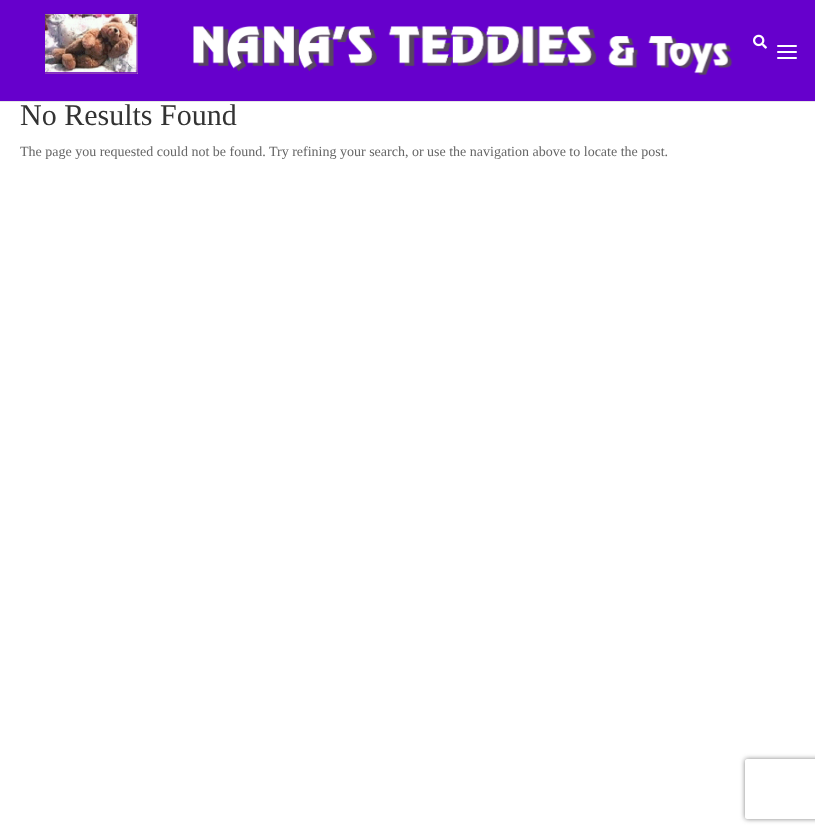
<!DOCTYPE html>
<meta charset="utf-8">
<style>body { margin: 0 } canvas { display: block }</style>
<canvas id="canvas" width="815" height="833"></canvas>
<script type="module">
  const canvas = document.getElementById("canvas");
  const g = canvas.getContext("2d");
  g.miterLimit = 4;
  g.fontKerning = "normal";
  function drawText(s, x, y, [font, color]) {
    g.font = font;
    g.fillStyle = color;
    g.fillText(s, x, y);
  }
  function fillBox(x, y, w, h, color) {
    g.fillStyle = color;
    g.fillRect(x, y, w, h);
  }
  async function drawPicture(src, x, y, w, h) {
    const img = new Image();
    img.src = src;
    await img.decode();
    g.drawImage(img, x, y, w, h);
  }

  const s1 = ["30px Liberation Serif", "#333333"];
  const s2 = ["14px Liberation Serif", "#666666"];

  fillBox(0, 0, 815, 833, "#FFFFFF");
  fillBox(0, 101, 815, 1, "#E6E6E6");
  fillBox(0, 0, 815, 101, "#6600CC");
  await drawPicture("pic1.png", 45, 14, 93, 60);
  await drawPicture("pic2.png", 193, 26, 540, 50);
  await drawPicture("pic3.png", 753, 34, 14, 15);
  await drawPicture("pic4.png", 777, 45, 20, 14);
  drawText("No Results Found", 20, 125, s1);
  drawText("The page you requested could not be found. Try refining your search, or use the navigation above to locate the post.", 20, 156, s2);
  g.save();
  g.beginPath();
  g.moveTo(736, 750);
  g.lineTo(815, 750);
  g.lineTo(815, 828);
  g.lineTo(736, 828);
  g.closePath();
  g.moveTo(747, 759);
  g.lineTo(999, 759);
  g.bezierCurveTo(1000, 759, 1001, 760, 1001, 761);
  g.lineTo(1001, 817);
  g.bezierCurveTo(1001, 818, 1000, 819, 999, 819);
  g.lineTo(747, 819);
  g.bezierCurveTo(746, 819, 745, 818, 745, 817);
  g.lineTo(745, 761);
  g.bezierCurveTo(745, 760, 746, 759, 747, 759);
  g.closePath();
  g.clip("evenodd");
  g.fillStyle = "#808080";
  g.filter = "blur(2.5px)";
  g.beginPath();
  g.roundRect(745, 759, 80, 60, 2);
  g.fill();
  g.filter = "none";
  g.restore();
</script>
